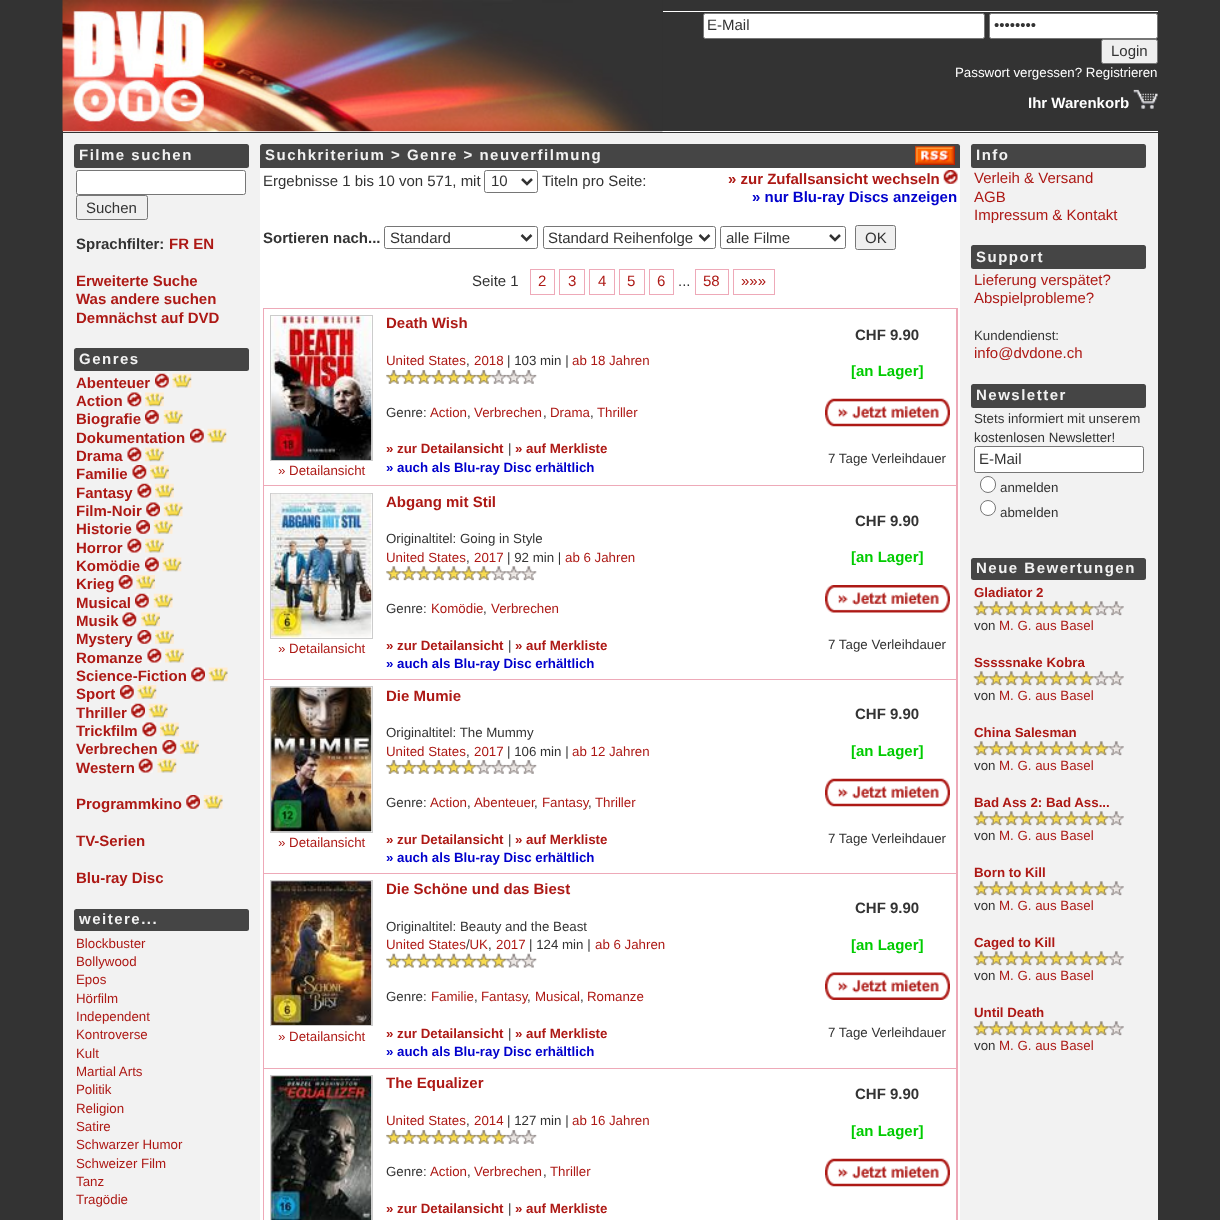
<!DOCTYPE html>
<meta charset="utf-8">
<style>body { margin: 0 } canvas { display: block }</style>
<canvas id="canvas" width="1220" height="1220"></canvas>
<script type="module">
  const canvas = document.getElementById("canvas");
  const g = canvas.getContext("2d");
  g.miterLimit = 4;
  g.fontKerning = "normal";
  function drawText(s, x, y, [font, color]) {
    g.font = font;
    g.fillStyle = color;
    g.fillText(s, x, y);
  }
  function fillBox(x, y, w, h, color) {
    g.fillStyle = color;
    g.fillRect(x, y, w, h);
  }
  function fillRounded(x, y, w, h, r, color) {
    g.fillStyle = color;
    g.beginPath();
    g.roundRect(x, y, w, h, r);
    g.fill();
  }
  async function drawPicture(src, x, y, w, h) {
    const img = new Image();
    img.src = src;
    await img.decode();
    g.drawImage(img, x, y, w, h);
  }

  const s1 = ["15px Liberation Sans", "#333333"];
  const s2 = ["13.3px Liberation Sans", "#FFFFFF"];
  const s3 = ["bold 15px Liberation Sans", "#FFFFFF"];
  const s4 = ["bold 15px Liberation Sans", "#F2F2F2"];
  const s5 = ["bold 15px Liberation Sans", "#333333"];
  const s6 = ["bold 15px Liberation Sans", "#AD1915"];
  const s7 = ["13.3px Liberation Sans", "#AD1915"];
  const s8 = ["bold 15px Liberation Sans", "#0000CC"];
  const s9 = ["15px Liberation Sans", "#AD1915"];
  const s10 = ["13.3px Liberation Sans", "#333333"];
  const s11 = ["bold 13.3px Liberation Sans", "#AD1915"];
  const s12 = ["bold 13.3px Liberation Sans", "#0000CC"];
  const s13 = ["bold 15px Liberation Sans", "#00CC00"];

  fillBox(0, 0, 1220, 1220, "#333333");
  fillBox(63, 131, 1095, 1, "#FFFFFF");
  await drawPicture("pic1.png", 62, 0, 601, 132);
  fillBox(663, 11, 495, 1, "#FFFFFF");
  g.beginPath();
  g.roundRect(703.5, 13.5, 281, 25, 2);
  g.fill();
  g.strokeStyle = "#767676";
  g.stroke();
  drawText("E-Mail", 707, 30, s1);
  g.fillStyle = "#FFFFFF";
  g.beginPath();
  g.roundRect(989.5, 13.5, 168, 25, 2);
  g.fill();
  g.stroke();
  drawText("••••••••", 994, 30, s1);
  g.fillStyle = "#EFEFEF";
  g.beginPath();
  g.roundRect(1101.5, 39.5, 56, 24, 2);
  g.fill();
  g.stroke();
  drawText("Login", 1111, 56, s1);
  drawText("Passwort vergessen? Registrieren", 955, 77, s2);
  drawText("Ihr Warenkorb", 1028, 108, s3);
  await drawPicture("pic2.png", 1133, 89, 25, 20);
  fillBox(63, 133, 1095, 1087, "#F2F2F2");
  fillRounded(74, 144, 175, 24, 2.5, "#454545");
  g.letterSpacing = "1.5px";
  drawText("Filme suchen", 79, 160, s4);
  g.fillStyle = "#FFFFFF";
  g.beginPath();
  g.roundRect(76.5, 170.5, 169, 24, 2);
  g.fill();
  g.stroke();
  g.fillStyle = "#EFEFEF";
  g.beginPath();
  g.roundRect(76.5, 195.5, 71, 24, 2);
  g.fill();
  g.stroke();
  g.letterSpacing = "0px";
  drawText("Suchen", 86, 213, s1);
  drawText("Sprachfilter:", 76, 249, s5);
  drawText("FR EN", 169, 249, s6);
  drawText("Erweiterte Suche", 76, 286, s6);
  drawText("Was andere suchen", 76, 304, s6);
  drawText("Demnächst auf DVD", 76, 323, s6);
  fillRounded(74, 348, 175, 23, 2.5, "#454545");
  g.letterSpacing = "1.5px";
  drawText("Genres", 79, 364, s4);
  g.letterSpacing = "0px";
  drawText("Abenteuer", 76, 388, s6);
  await drawPicture("pic3.png", 155, 373, 14, 15);
  await drawPicture("pic4.png", 172, 373, 20, 15);
  drawText("Action", 76, 406, s6);
  await drawPicture("pic5.png", 127, 392, 15, 15);
  await drawPicture("pic6.png", 145, 392, 19, 15);
  drawText("Biografie", 76, 424, s6);
  await drawPicture("pic7.png", 145, 410, 14, 14);
  await drawPicture("pic8.png", 163, 410, 20, 14);
  drawText("Dokumentation", 76, 443, s6);
  await drawPicture("pic3.png", 190, 428, 14, 15);
  await drawPicture("pic4.png", 207, 428, 20, 15);
  drawText("Drama", 76, 461, s6);
  await drawPicture("pic5.png", 127, 447, 15, 15);
  await drawPicture("pic6.png", 145, 447, 19, 15);
  drawText("Familie", 76, 479, s6);
  await drawPicture("pic9.png", 132, 465, 15, 14);
  await drawPicture("pic10.png", 150, 465, 19, 14);
  drawText("Fantasy", 76, 498, s6);
  await drawPicture("pic11.png", 137, 483, 15, 15);
  await drawPicture("pic12.png", 155, 483, 19, 15);
  drawText("Film-Noir", 76, 516, s6);
  await drawPicture("pic13.png", 146, 502, 14, 15);
  await drawPicture("pic14.png", 163, 502, 20, 15);
  drawText("Historie", 76, 534, s6);
  await drawPicture("pic15.png", 136, 520, 14, 14);
  await drawPicture("pic16.png", 153, 520, 20, 14);
  drawText("Horror", 76, 553, s6);
  await drawPicture("pic11.png", 127, 538, 15, 15);
  await drawPicture("pic12.png", 145, 538, 19, 15);
  drawText("Komödie", 76, 571, s6);
  await drawPicture("pic17.png", 145, 557, 14, 15);
  await drawPicture("pic18.png", 162, 557, 20, 15);
  drawText("Krieg", 76, 589, s6);
  await drawPicture("pic19.png", 118, 575, 15, 14);
  await drawPicture("pic20.png", 136, 575, 19, 14);
  drawText("Musical", 76, 608, s6);
  await drawPicture("pic3.png", 135, 593, 14, 15);
  await drawPicture("pic21.png", 153, 593, 20, 15);
  drawText("Musik", 76, 626, s6);
  await drawPicture("pic5.png", 122, 612, 15, 15);
  await drawPicture("pic22.png", 141, 612, 19, 15);
  drawText("Mystery", 76, 644, s6);
  await drawPicture("pic9.png", 137, 630, 15, 14);
  await drawPicture("pic10.png", 155, 630, 19, 14);
  drawText("Romanze", 76, 663, s6);
  await drawPicture("pic11.png", 147, 648, 15, 15);
  await drawPicture("pic12.png", 165, 648, 19, 15);
  drawText("Science-Fiction", 76, 681, s6);
  await drawPicture("pic13.png", 191, 667, 14, 15);
  await drawPicture("pic14.png", 208, 667, 20, 15);
  drawText("Sport", 76, 699, s6);
  await drawPicture("pic7.png", 120, 685, 14, 14);
  await drawPicture("pic23.png", 137, 685, 20, 14);
  drawText("Thriller", 76, 718, s6);
  await drawPicture("pic24.png", 131, 703, 14, 15);
  await drawPicture("pic21.png", 148, 703, 20, 15);
  drawText("Trickfilm", 76, 736, s6);
  await drawPicture("pic5.png", 142, 722, 15, 15);
  await drawPicture("pic6.png", 160, 722, 19, 15);
  drawText("Verbrechen", 76, 754, s6);
  await drawPicture("pic9.png", 162, 740, 15, 14);
  await drawPicture("pic10.png", 180, 740, 19, 14);
  drawText("Western", 76, 773, s6);
  await drawPicture("pic25.png", 138, 758, 15, 15);
  await drawPicture("pic4.png", 157, 758, 20, 15);
  drawText("Programmkino", 76, 809, s6);
  await drawPicture("pic15.png", 186, 795, 14, 14);
  await drawPicture("pic8.png", 203, 795, 20, 14);
  drawText("TV-Serien", 76, 846, s6);
  drawText("Blu-ray Disc", 76, 883, s6);
  fillRounded(74, 909, 175, 22, 2.5, "#454545");
  g.letterSpacing = "1.5px";
  drawText("weitere...", 79, 924, s4);
  g.letterSpacing = "0px";
  drawText("Blockbuster", 76, 948, s7);
  drawText("Bollywood", 76, 966, s7);
  drawText("Epos", 76, 984, s7);
  drawText("Hörfilm", 76, 1003, s7);
  drawText("Independent", 76, 1021, s7);
  drawText("Kontroverse", 76, 1039, s7);
  drawText("Kult", 76, 1058, s7);
  drawText("Martial Arts", 76, 1076, s7);
  drawText("Politik", 76, 1094, s7);
  drawText("Religion", 76, 1113, s7);
  drawText("Satire", 76, 1131, s7);
  drawText("Schwarzer Humor", 76, 1149, s7);
  drawText("Schweizer Film", 76, 1168, s7);
  drawText("Tanz", 76, 1186, s7);
  drawText("Tragödie", 76, 1204, s7);
  g.fillStyle = "#454545";
  g.beginPath();
  g.roundRect(260, 144, 640, 24, [2.5, 0, 0, 0]);
  g.fill();
  g.letterSpacing = "1.5px";
  drawText("Suchkriterium > Genre > neuverfilmung", 265, 160, s4);
  g.fillStyle = "#454545";
  g.beginPath();
  g.roundRect(900, 144, 60, 24, [0, 2.5, 0, 0]);
  g.fill();
  await drawPicture("pic26.png", 915, 146, 40, 19);
  fillBox(260, 168, 700, 1052, "#FFFFFF");
  g.letterSpacing = "0px";
  drawText("Ergebnisse 1 bis 10 von 571, mit", 263, 186, s1);
  g.beginPath();
  g.roundRect(484.5, 170.5, 53, 22, 2);
  g.stroke();
  g.beginPath();
  g.moveTo(522, 179);
  g.lineTo(527, 184);
  g.lineTo(532, 179);
  g.strokeStyle = "#333333";
  g.lineWidth = 2.5;
  g.stroke();
  drawText("10", 491, 186, s1);
  drawText("Titeln pro Seite:", 542, 186, s1);
  drawText("» zur Zufallsansicht wechseln", 728, 184, s6);
  await drawPicture("pic27.png", 943, 170, 15, 14);
  drawText("» nur Blu-ray Discs anzeigen", 752, 202, s8);
  drawText("Sortieren nach...", 263, 243, s5);
  g.beginPath();
  g.roundRect(384.5, 226.5, 153, 22, 2);
  g.strokeStyle = "#767676";
  g.lineWidth = 1;
  g.stroke();
  g.beginPath();
  g.moveTo(521.5, 235);
  g.lineTo(526.5, 240);
  g.lineTo(531.5, 235);
  g.strokeStyle = "#333333";
  g.lineWidth = 2.5;
  g.stroke();
  drawText("Standard", 390, 243, s1);
  g.beginPath();
  g.roundRect(543.5, 226.5, 172, 22, 2);
  g.strokeStyle = "#767676";
  g.lineWidth = 1;
  g.stroke();
  g.beginPath();
  g.moveTo(699.5, 235);
  g.lineTo(704.5, 240);
  g.lineTo(709.5, 235);
  g.strokeStyle = "#333333";
  g.lineWidth = 2.5;
  g.stroke();
  drawText("Standard Reihenfolge", 548, 243, s1);
  g.beginPath();
  g.roundRect(720.5, 226.5, 125, 22, 2);
  g.strokeStyle = "#767676";
  g.lineWidth = 1;
  g.stroke();
  g.beginPath();
  g.moveTo(830, 235);
  g.lineTo(835, 240);
  g.lineTo(840, 235);
  g.strokeStyle = "#333333";
  g.lineWidth = 2.5;
  g.stroke();
  drawText("alle Filme", 726, 243, s1);
  g.fillStyle = "#EFEFEF";
  g.beginPath();
  g.roundRect(855.5, 225.5, 40, 24, 2);
  g.fill();
  g.strokeStyle = "#767676";
  g.lineWidth = 1;
  g.stroke();
  drawText("OK", 865, 243, s1);
  drawText("Seite 1", 472, 286, s1);
  g.strokeStyle = "#EEA9B8";
  g.strokeRect(530.5, 269.5, 24, 25);
  drawText("2", 538, 286, s9);
  g.strokeRect(559.5, 269.5, 25, 25);
  drawText("3", 568, 286, s9);
  g.strokeRect(589.5, 269.5, 25, 25);
  drawText("4", 598, 286, s9);
  g.strokeRect(619.5, 269.5, 25, 25);
  drawText("5", 627, 286, s9);
  g.strokeRect(649.5, 269.5, 24, 25);
  drawText("6", 657, 286, s9);
  drawText("...", 678, 286, s1);
  g.strokeRect(695.5, 269.5, 33, 25);
  drawText("58", 703, 286, s9);
  g.strokeRect(733.5, 269.5, 41, 25);
  drawText("»»»", 741, 286, s9);
  fillBox(263, 308, 695, 912, "#EEA9B8");
  fillBox(264, 309, 692, 176, "#FFFFFF");
  drawText("Death Wish", 386, 328, s6);
  drawText("United States", 386, 365, s7);
  drawText(",", 466, 365, s10);
  drawText("2018", 474, 365, s7);
  drawText("| 103 min |", 507, 365, s10);
  drawText("ab 18 Jahren", 572, 365, s7);
  await drawPicture("pic28.png", 386, 370, 16, 14);
  await drawPicture("pic29.png", 401, 370, 16, 14);
  await drawPicture("pic29.png", 416, 370, 16, 14);
  await drawPicture("pic29.png", 431, 370, 16, 14);
  await drawPicture("pic29.png", 446, 370, 16, 14);
  await drawPicture("pic29.png", 461, 370, 16, 14);
  await drawPicture("pic29.png", 476, 370, 16, 14);
  await drawPicture("pic30.png", 491, 370, 16, 14);
  await drawPicture("pic31.png", 506, 370, 16, 14);
  await drawPicture("pic31.png", 521, 370, 16, 14);
  drawText("Genre:", 386, 417, s10);
  drawText("Action", 430, 417, s7);
  drawText(",", 467, 417, s10);
  drawText("Verbrechen", 474, 417, s7);
  drawText(",", 543, 417, s10);
  drawText("Drama", 550, 417, s7);
  drawText(",", 590, 417, s10);
  drawText("Thriller", 597, 417, s7);
  drawText("» zur Detailansicht", 386, 453, s11);
  drawText("|", 508, 453, s10);
  drawText("» auf Merkliste", 515, 453, s11);
  drawText("» auch als Blu-ray Disc erhältlich", 386, 472, s12);
  drawText("CHF 9.90", 855, 340, s5);
  drawText("[an Lager]", 851, 376, s13);
  await drawPicture("pic32.png", 825, 398, 125, 29);
  drawText("7 Tage Verleihdauer", 828, 463, s10);
  g.strokeStyle = "#CCCCCC";
  g.strokeRect(270.5, 315.5, 102, 145);
  await drawPicture("pic33.png", 271, 316, 101, 144);
  drawText("» Detailansicht", 278, 475, s7);
  fillBox(264, 486, 692, 193, "#FFFFFF");
  g.strokeRect(270.5, 493.5, 102, 145);
  await drawPicture("pic34.png", 271, 493, 101, 145);
  drawText("» Detailansicht", 278, 653, s7);
  drawText("Abgang mit Stil", 386, 507, s6);
  drawText("Originaltitel: Going in Style", 386, 543, s10);
  drawText("United States", 386, 562, s7);
  drawText(",", 466, 562, s10);
  drawText("2017", 474, 562, s7);
  drawText("| 92 min |", 507, 562, s10);
  drawText("ab 6 Jahren", 565, 562, s7);
  await drawPicture("pic35.png", 386, 566, 16, 15);
  await drawPicture("pic36.png", 401, 566, 16, 15);
  await drawPicture("pic36.png", 416, 566, 16, 15);
  await drawPicture("pic36.png", 431, 566, 16, 15);
  await drawPicture("pic36.png", 446, 566, 16, 15);
  await drawPicture("pic36.png", 461, 566, 16, 15);
  await drawPicture("pic36.png", 476, 566, 16, 15);
  await drawPicture("pic37.png", 491, 566, 16, 15);
  await drawPicture("pic38.png", 506, 566, 16, 15);
  await drawPicture("pic38.png", 521, 566, 16, 15);
  drawText("Genre:", 386, 613, s10);
  drawText("Komödie", 431, 613, s7);
  drawText(",", 483, 613, s10);
  drawText("Verbrechen", 491, 613, s7);
  drawText("» zur Detailansicht", 386, 650, s11);
  drawText("|", 508, 650, s10);
  drawText("» auf Merkliste", 515, 650, s11);
  drawText("» auch als Blu-ray Disc erhältlich", 386, 668, s12);
  drawText("CHF 9.90", 855, 526, s5);
  drawText("[an Lager]", 851, 562, s13);
  await drawPicture("pic39.png", 825, 585, 125, 28);
  drawText("7 Tage Verleihdauer", 828, 649, s10);
  fillBox(264, 680, 692, 193, "#FFFFFF");
  g.strokeRect(270.5, 686.5, 102, 146);
  await drawPicture("pic40.png", 271, 687, 101, 145);
  drawText("» Detailansicht", 278, 847, s7);
  drawText("Die Mumie", 386, 701, s6);
  drawText("Originaltitel: The Mummy", 386, 737, s10);
  drawText("United States", 386, 756, s7);
  drawText(",", 466, 756, s10);
  drawText("2017", 474, 756, s7);
  drawText("| 106 min |", 507, 756, s10);
  drawText("ab 12 Jahren", 572, 756, s7);
  await drawPicture("pic28.png", 386, 760, 16, 14);
  await drawPicture("pic29.png", 401, 760, 16, 14);
  await drawPicture("pic29.png", 416, 760, 16, 14);
  await drawPicture("pic29.png", 431, 760, 16, 14);
  await drawPicture("pic29.png", 446, 760, 16, 14);
  await drawPicture("pic29.png", 461, 760, 16, 14);
  await drawPicture("pic30.png", 476, 760, 16, 14);
  await drawPicture("pic31.png", 491, 760, 16, 14);
  await drawPicture("pic31.png", 506, 760, 16, 14);
  await drawPicture("pic31.png", 521, 760, 16, 14);
  drawText("Genre:", 386, 807, s10);
  drawText("Action", 430, 807, s7);
  drawText(",", 467, 807, s10);
  drawText("Abenteuer", 474, 807, s7);
  drawText(",", 534, 807, s10);
  drawText("Fantasy", 542, 807, s7);
  drawText("Thriller", 595, 807, s7);
  drawText(",", 588, 807, s10);
  drawText("» zur Detailansicht", 386, 844, s11);
  drawText("|", 508, 844, s10);
  drawText("» auf Merkliste", 515, 844, s11);
  drawText("» auch als Blu-ray Disc erhältlich", 386, 862, s12);
  drawText("CHF 9.90", 855, 719, s5);
  drawText("[an Lager]", 851, 756, s13);
  await drawPicture("pic41.png", 825, 778, 125, 29);
  drawText("7 Tage Verleihdauer", 828, 843, s10);
  fillBox(264, 874, 692, 194, "#FFFFFF");
  g.strokeRect(270.5, 880.5, 102, 145);
  await drawPicture("pic42.png", 271, 881, 101, 144);
  drawText("» Detailansicht", 278, 1041, s7);
  drawText("Die Schöne und das Biest", 386, 894, s6);
  drawText("Originaltitel: Beauty and the Beast", 386, 931, s10);
  drawText("United States UK", 386, 949, s7);
  drawText("/", 466, 949, s10);
  drawText(",", 488, 949, s10);
  drawText("2017", 496, 949, s7);
  drawText("| 124 min |", 529, 949, s10);
  drawText("ab 6 Jahren", 595, 949, s7);
  await drawPicture("pic43.png", 386, 953, 16, 15);
  await drawPicture("pic44.png", 401, 953, 16, 15);
  await drawPicture("pic44.png", 416, 953, 16, 15);
  await drawPicture("pic44.png", 431, 953, 16, 15);
  await drawPicture("pic44.png", 446, 953, 16, 15);
  await drawPicture("pic44.png", 461, 953, 16, 15);
  await drawPicture("pic44.png", 476, 953, 16, 15);
  await drawPicture("pic44.png", 491, 953, 16, 15);
  await drawPicture("pic45.png", 506, 953, 16, 15);
  await drawPicture("pic46.png", 521, 953, 16, 15);
  drawText("Genre:", 386, 1001, s10);
  drawText("Familie", 431, 1001, s7);
  drawText(",", 474, 1001, s10);
  drawText("Fantasy", 481, 1001, s7);
  drawText("Musical", 535, 1001, s7);
  drawText("Romanze", 587, 1001, s7);
  drawText(",", 527, 1001, s10);
  drawText(",", 580, 1001, s10);
  drawText("» zur Detailansicht", 386, 1038, s11);
  drawText("|", 508, 1038, s10);
  drawText("» auf Merkliste", 515, 1038, s11);
  drawText("» auch als Blu-ray Disc erhältlich", 386, 1056, s12);
  drawText("CHF 9.90", 855, 913, s5);
  drawText("[an Lager]", 851, 950, s13);
  await drawPicture("pic47.png", 825, 972, 125, 28);
  drawText("7 Tage Verleihdauer", 828, 1037, s10);
  fillBox(264, 1069, 692, 151, "#FFFFFF");
  g.strokeRect(270.5, 1075.5, 102, 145);
  await drawPicture("pic48.png", 271, 1076, 101, 144);
  drawText("The Equalizer", 386, 1088, s6);
  drawText("United States", 386, 1125, s7);
  drawText(",", 466, 1125, s10);
  drawText("2014", 474, 1125, s7);
  drawText("| 127 min |", 507, 1125, s10);
  drawText("ab 16 Jahren", 572, 1125, s7);
  await drawPicture("pic28.png", 386, 1130, 16, 14);
  await drawPicture("pic29.png", 401, 1130, 16, 14);
  await drawPicture("pic29.png", 416, 1130, 16, 14);
  await drawPicture("pic29.png", 431, 1130, 16, 14);
  await drawPicture("pic29.png", 446, 1130, 16, 14);
  await drawPicture("pic29.png", 461, 1130, 16, 14);
  await drawPicture("pic29.png", 476, 1130, 16, 14);
  await drawPicture("pic29.png", 491, 1130, 16, 14);
  await drawPicture("pic30.png", 506, 1130, 16, 14);
  await drawPicture("pic31.png", 521, 1130, 16, 14);
  drawText("Genre:", 386, 1176, s10);
  drawText("Action", 430, 1176, s7);
  drawText(",", 467, 1176, s10);
  drawText("Verbrechen", 474, 1176, s7);
  drawText(",", 543, 1176, s10);
  drawText("Thriller", 550, 1176, s7);
  drawText("» zur Detailansicht", 386, 1213, s11);
  drawText("|", 508, 1213, s10);
  drawText("» auf Merkliste", 515, 1213, s11);
  drawText("CHF 9.90", 855, 1099, s5);
  drawText("[an Lager]", 851, 1136, s13);
  await drawPicture("pic49.png", 825, 1158, 125, 29);
  fillRounded(971, 144, 175, 24, 2.5, "#454545");
  g.letterSpacing = "1.5px";
  drawText("Info", 976, 160, s4);
  g.letterSpacing = "0px";
  drawText("Verleih & Versand", 974, 183, s9);
  drawText("AGB", 974, 202, s9);
  drawText("Impressum & Kontakt", 974, 220, s9);
  fillRounded(971, 245, 175, 24, 2.5, "#454545");
  g.letterSpacing = "1.5px";
  drawText("Support", 976, 262, s4);
  g.letterSpacing = "0px";
  drawText("Lieferung verspätet?", 974, 285, s9);
  drawText("Abspielprobleme?", 974, 303, s9);
  drawText("Kundendienst:", 974, 340, s10);
  drawText("info@dvdone.ch", 974, 358, s9);
  fillRounded(971, 384, 175, 24, 2.5, "#454545");
  g.letterSpacing = "1.5px";
  drawText("Newsletter", 976, 400, s4);
  g.letterSpacing = "0px";
  drawText("Stets informiert mit unserem", 974, 423, s10);
  drawText("kostenlosen Newsletter!", 974, 442, s10);
  g.fillStyle = "#FFFFFF";
  g.beginPath();
  g.roundRect(974.5, 446.5, 169, 26, 2);
  g.fill();
  g.strokeStyle = "#767676";
  g.stroke();
  drawText("E-Mail", 979, 464, s1);
  g.fillStyle = "#FFFFFF";
  g.beginPath();
  g.roundRect(980.5, 476.5, 15, 16, 7.5);
  g.fill();
  g.stroke();
  drawText("anmelden", 1000, 492, s10);
  g.fillStyle = "#FFFFFF";
  g.beginPath();
  g.arc(988, 508, 7.5, 0, Math.PI * 2);
  g.fill();
  g.stroke();
  drawText("abmelden", 1000, 517, s10);
  fillRounded(971, 558, 175, 22, 2.5, "#454545");
  g.letterSpacing = "1.5px";
  drawText("Neue Bewertungen", 976, 573, s4);
  g.letterSpacing = "0px";
  drawText("Gladiator 2", 974, 597, s11);
  await drawPicture("pic50.png", 973, 601, 16, 15);
  await drawPicture("pic51.png", 988, 601, 16, 15);
  await drawPicture("pic51.png", 1003, 601, 16, 15);
  await drawPicture("pic52.png", 1018, 601, 16, 15);
  await drawPicture("pic53.png", 1033, 601, 16, 15);
  await drawPicture("pic53.png", 1048, 601, 16, 15);
  await drawPicture("pic51.png", 1063, 601, 16, 15);
  await drawPicture("pic51.png", 1078, 601, 16, 15);
  await drawPicture("pic54.png", 1093, 601, 16, 15);
  await drawPicture("pic55.png", 1108, 601, 16, 15);
  drawText("von", 974, 630, s10);
  drawText("M. G. aus Basel", 999, 630, s7);
  drawText("Sssssnake Kobra", 974, 667, s11);
  await drawPicture("pic50.png", 973, 671, 16, 15);
  await drawPicture("pic51.png", 988, 671, 16, 15);
  await drawPicture("pic51.png", 1003, 671, 16, 15);
  await drawPicture("pic52.png", 1018, 671, 16, 15);
  await drawPicture("pic53.png", 1033, 671, 16, 15);
  await drawPicture("pic53.png", 1048, 671, 16, 15);
  await drawPicture("pic51.png", 1063, 671, 16, 15);
  await drawPicture("pic51.png", 1078, 671, 16, 15);
  await drawPicture("pic54.png", 1093, 671, 16, 15);
  await drawPicture("pic55.png", 1108, 671, 16, 15);
  drawText("von", 974, 700, s10);
  drawText("M. G. aus Basel", 999, 700, s7);
  drawText("China Salesman", 974, 737, s11);
  await drawPicture("pic50.png", 973, 741, 16, 15);
  await drawPicture("pic51.png", 988, 741, 16, 15);
  await drawPicture("pic51.png", 1003, 741, 16, 15);
  await drawPicture("pic52.png", 1018, 741, 16, 15);
  await drawPicture("pic53.png", 1033, 741, 16, 15);
  await drawPicture("pic53.png", 1048, 741, 16, 15);
  await drawPicture("pic51.png", 1063, 741, 16, 15);
  await drawPicture("pic51.png", 1078, 741, 16, 15);
  await drawPicture("pic51.png", 1093, 741, 16, 15);
  await drawPicture("pic54.png", 1108, 741, 16, 15);
  drawText("von", 974, 770, s10);
  drawText("M. G. aus Basel", 999, 770, s7);
  drawText("Bad Ass 2: Bad Ass...", 974, 807, s11);
  await drawPicture("pic50.png", 973, 811, 16, 15);
  await drawPicture("pic51.png", 988, 811, 16, 15);
  await drawPicture("pic51.png", 1003, 811, 16, 15);
  await drawPicture("pic52.png", 1018, 811, 16, 15);
  await drawPicture("pic53.png", 1033, 811, 16, 15);
  await drawPicture("pic53.png", 1048, 811, 16, 15);
  await drawPicture("pic51.png", 1063, 811, 16, 15);
  await drawPicture("pic51.png", 1078, 811, 16, 15);
  await drawPicture("pic51.png", 1093, 811, 16, 15);
  await drawPicture("pic54.png", 1108, 811, 16, 15);
  drawText("von", 974, 840, s10);
  drawText("M. G. aus Basel", 999, 840, s7);
  drawText("Born to Kill", 974, 877, s11);
  await drawPicture("pic50.png", 973, 881, 16, 15);
  await drawPicture("pic51.png", 988, 881, 16, 15);
  await drawPicture("pic51.png", 1003, 881, 16, 15);
  await drawPicture("pic52.png", 1018, 881, 16, 15);
  await drawPicture("pic53.png", 1033, 881, 16, 15);
  await drawPicture("pic53.png", 1048, 881, 16, 15);
  await drawPicture("pic51.png", 1063, 881, 16, 15);
  await drawPicture("pic51.png", 1078, 881, 16, 15);
  await drawPicture("pic51.png", 1093, 881, 16, 15);
  await drawPicture("pic54.png", 1108, 881, 16, 15);
  drawText("von", 974, 910, s10);
  drawText("M. G. aus Basel", 999, 910, s7);
  drawText("Caged to Kill", 974, 947, s11);
  await drawPicture("pic50.png", 973, 951, 16, 15);
  await drawPicture("pic51.png", 988, 951, 16, 15);
  await drawPicture("pic51.png", 1003, 951, 16, 15);
  await drawPicture("pic52.png", 1018, 951, 16, 15);
  await drawPicture("pic53.png", 1033, 951, 16, 15);
  await drawPicture("pic53.png", 1048, 951, 16, 15);
  await drawPicture("pic51.png", 1063, 951, 16, 15);
  await drawPicture("pic51.png", 1078, 951, 16, 15);
  await drawPicture("pic51.png", 1093, 951, 16, 15);
  await drawPicture("pic54.png", 1108, 951, 16, 15);
  drawText("von", 974, 980, s10);
  drawText("M. G. aus Basel", 999, 980, s7);
  drawText("Until Death", 974, 1017, s11);
  await drawPicture("pic56.png", 973, 1021, 16, 15);
  await drawPicture("pic57.png", 988, 1021, 16, 15);
  await drawPicture("pic57.png", 1003, 1021, 16, 15);
  await drawPicture("pic58.png", 1018, 1021, 16, 15);
  await drawPicture("pic59.png", 1033, 1021, 16, 15);
  await drawPicture("pic59.png", 1048, 1021, 16, 15);
  await drawPicture("pic57.png", 1063, 1021, 16, 15);
  await drawPicture("pic57.png", 1078, 1021, 16, 15);
  await drawPicture("pic57.png", 1093, 1021, 16, 15);
  await drawPicture("pic60.png", 1108, 1021, 16, 15);
  drawText("von", 974, 1050, s10);
  drawText("M. G. aus Basel", 999, 1050, s7);
</script>
